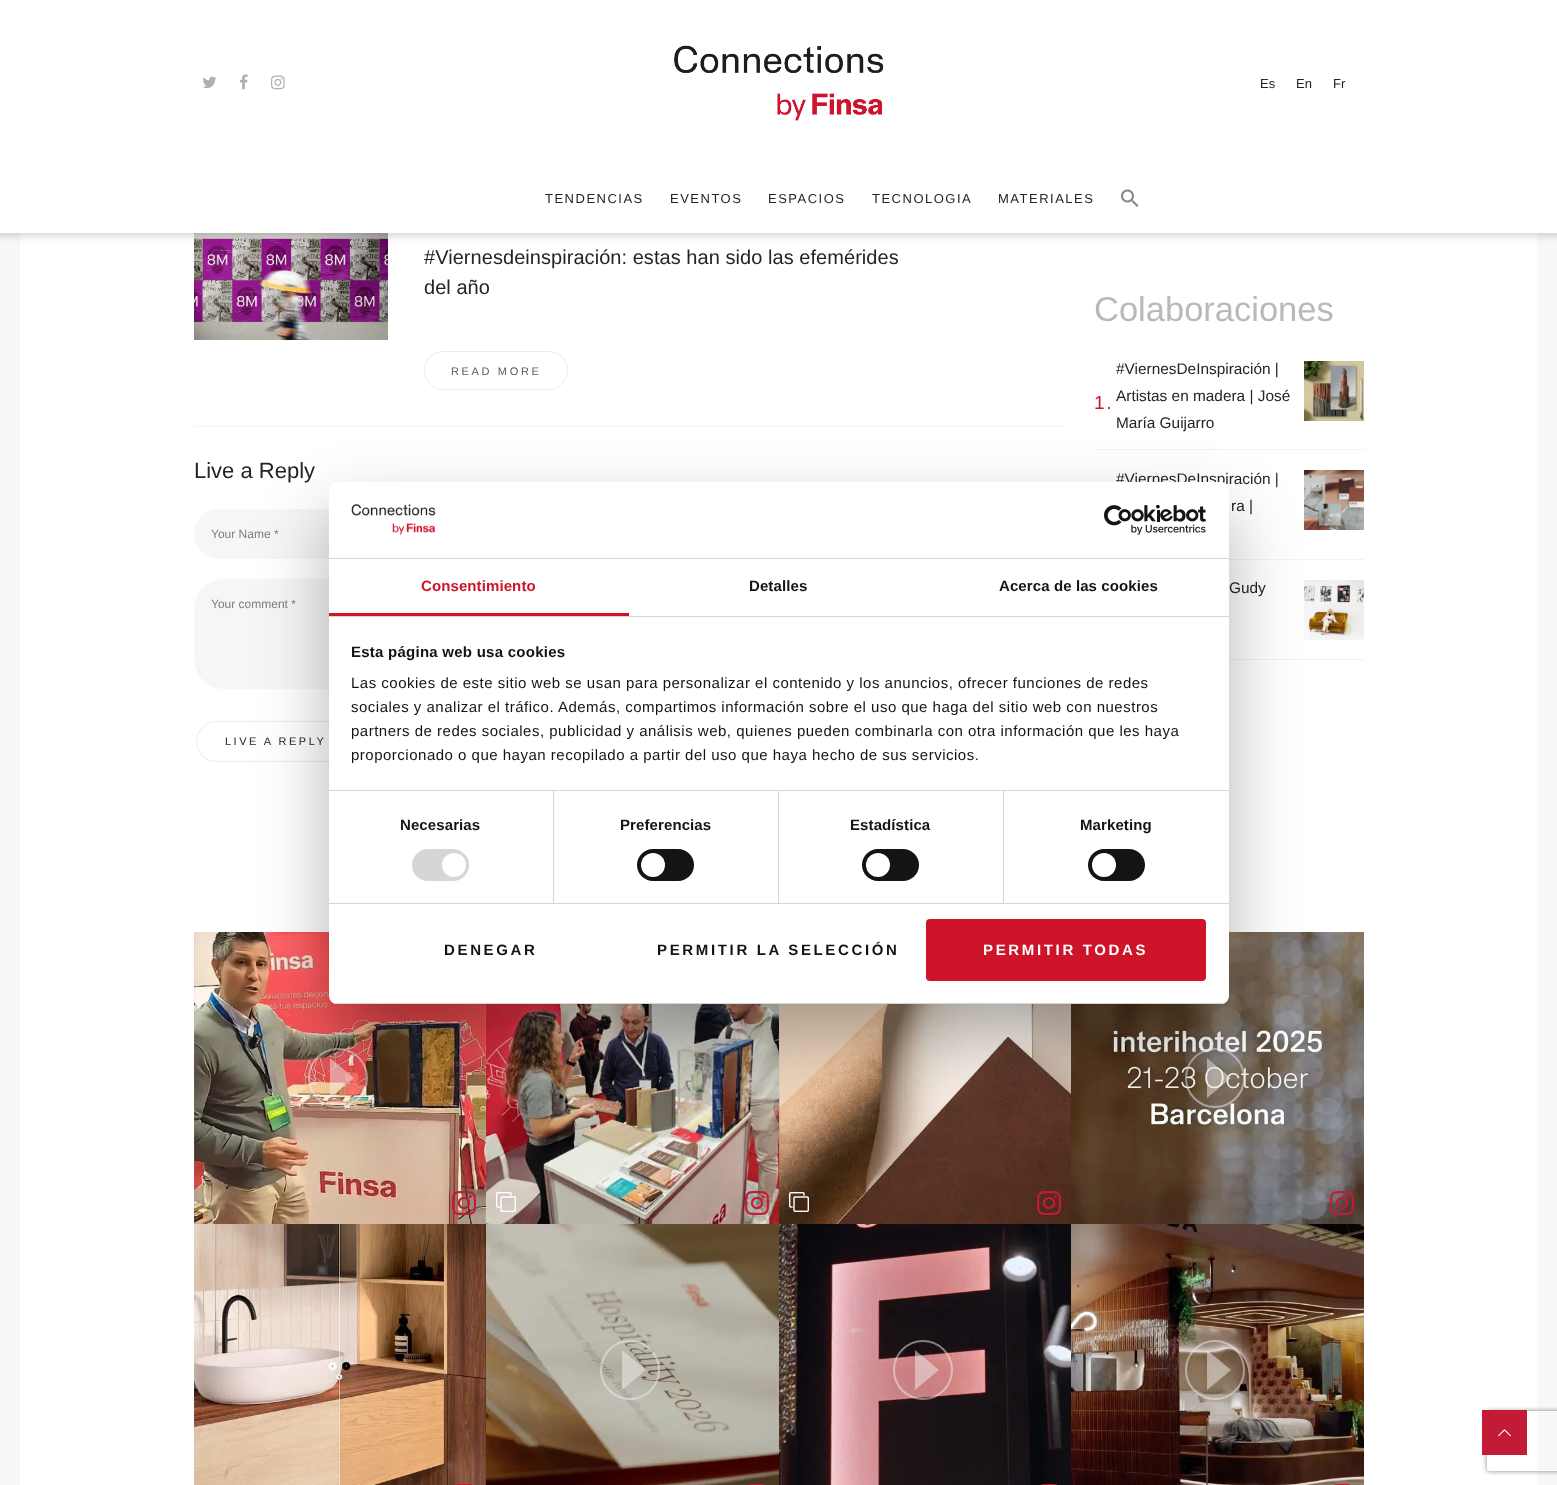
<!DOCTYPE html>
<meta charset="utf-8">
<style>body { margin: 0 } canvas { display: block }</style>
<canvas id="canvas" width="1557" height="1485"></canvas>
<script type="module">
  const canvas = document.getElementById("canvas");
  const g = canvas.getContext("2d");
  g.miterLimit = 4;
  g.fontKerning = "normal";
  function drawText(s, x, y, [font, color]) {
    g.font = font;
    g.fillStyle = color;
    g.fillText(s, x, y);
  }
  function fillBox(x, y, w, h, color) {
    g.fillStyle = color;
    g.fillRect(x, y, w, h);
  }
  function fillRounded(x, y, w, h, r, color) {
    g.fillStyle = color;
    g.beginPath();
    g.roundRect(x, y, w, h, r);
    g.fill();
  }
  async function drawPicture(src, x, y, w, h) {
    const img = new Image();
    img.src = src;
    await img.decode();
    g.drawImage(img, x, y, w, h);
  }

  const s1 = ["13px Liberation Sans", "#242424"];
  const s2 = ["20px Liberation Sans", "#242424"];
  const s3 = ["11px Liberation Sans", "#5A5A5A"];
  const s4 = ["22px Liberation Sans", "#242424"];
  const s5 = ["12px Liberation Sans", "#7D7D7D"];
  const s6 = ["11px Liberation Sans", "#242424"];
  const s7 = ["34.5px Liberation Sans", "#B9B9B9"];
  const s8 = ["19px Liberation Sans", "#C31A35"];
  const s9 = ["15.4px Liberation Sans", "#242424"];
  const s10 = ["bold 15px Liberation Sans", "#CE1428"];
  const s11 = ["bold 15px Liberation Sans", "#141414"];
  const s12 = ["15px Liberation Sans", "#141414"];
  const s13 = ["bold 15px Liberation Sans", "#FFFFFF"];

  fillBox(0, 0, 1557, 1485, "#F8F8F8");
  fillBox(20, 233, 1517, 1252, "#FFFFFF");
  await drawPicture("pic6.png", 194, 233, 194, 107);
  g.fillStyle = "rgba(0, 0, 0, 0.2)";
  g.filter = "blur(5px)";
  g.beginPath();
  g.rect(-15, 2, 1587, 233);
  g.fill();
  g.filter = "none";
  fillBox(0, 0, 1557, 233, "#FFFFFF");
  await drawPicture("pic1.png", 202, 76, 15, 13);
  await drawPicture("pic2.png", 239, 74, 9, 16);
  await drawPicture("pic3.png", 271, 75, 14, 15);
  await drawPicture("pic4.png", 674, 45, 210, 76);
  drawText("Es", 1260, 88, s1);
  drawText("En", 1296, 88, s1);
  drawText("Fr", 1333, 88, s1);
  g.letterSpacing = "1.5px";
  drawText("TENDENCIAS", 545, 203, s1);
  drawText("EVENTOS", 670, 203, s1);
  drawText("ESPACIOS", 768, 203, s1);
  drawText("TECNOLOGIA", 872, 203, s1);
  drawText("MATERIALES", 998, 203, s1);
  await drawPicture("pic5.png", 1121, 189, 18, 18);
  g.letterSpacing = "0.05px";
  drawText("#Viernesdeinspiración: estas han sido las efemérides", 424, 264, s2);
  drawText("del año", 424, 294, s2);
  g.beginPath();
  g.roundRect(424.5, 351.5, 143, 38, 19);
  g.strokeStyle = "#EBEBEB";
  g.stroke();
  g.letterSpacing = "2.65px";
  drawText("READ MORE", 451, 375, s3);
  fillBox(194, 426, 870, 1, "#F5F3F0");
  g.letterSpacing = "0px";
  drawText("Live a Reply", 194, 478, s4);
  g.fillStyle = "#F5F6F7";
  g.beginPath();
  g.roundRect(194.5, 509.5, 425, 49, 24.5);
  g.fill();
  g.strokeStyle = "#F5F6F7";
  g.stroke();
  drawText("Your Name *", 211, 538, s5);
  fillRounded(194, 579, 870, 110, 30, "#F5F6F7");
  drawText("Your comment *", 211, 608, s5);
  g.beginPath();
  g.roundRect(196.5, 721.5, 159, 40, 20);
  g.strokeStyle = "#EBEBEB";
  g.stroke();
  g.letterSpacing = "2.5px";
  drawText("LIVE A REPLY", 225, 745, s6);
  g.letterSpacing = "0px";
  drawText("Colaboraciones", 1094, 321, s7);
  fillBox(1094, 449, 270, 1, "#F5F3F0");
  g.letterSpacing = "2px";
  drawText("1.", 1094, 409, s8);
  g.letterSpacing = "0px";
  drawText("#ViernesDeInspiración |", 1116, 374, s9);
  await drawPicture("pic7.png", 1304, 361, 60, 60);
  drawText("Artistas en madera | José", 1116, 401, s9);
  drawText("María Guijarro", 1116, 428, s9);
  fillBox(1229, 559, 135, 1, "#F5F3F0");
  drawText("#ViernesDeInspiración |", 1116, 484, s9);
  await drawPicture("pic8.png", 1304, 470, 60, 60);
  drawText("ra |", 1231, 511, s9);
  fillBox(1229, 659, 135, 1, "#F5F3F0");
  drawText("Gudy", 1229, 593, s9);
  await drawPicture("pic9.png", 1304, 580, 60, 60);
  await drawPicture("pic10.png", 194, 932, 292, 292);
  g.fillStyle = "rgba(239, 239, 239, 0.5)";
  g.beginPath();
  g.moveTo(330, 1098);
  g.lineTo(330, 1058);
  g.lineTo(354, 1078);
  g.closePath();
  g.fill();
  g.beginPath();
  g.arc(338, 1078, 29, 0, Math.PI * 2);
  g.strokeStyle = "rgba(239, 239, 239, 0.5)";
  g.lineWidth = 2;
  g.stroke();
  await drawPicture("pic11.png", 452, 1191, 24, 24);
  await drawPicture("pic12.png", 486, 1004, 293, 220);
  await drawPicture("pic13.png", 496, 1192, 20, 20);
  await drawPicture("pic14.png", 745, 1191, 24, 24);
  await drawPicture("pic15.png", 779, 1004, 292, 220);
  await drawPicture("pic16.png", 789, 1192, 20, 20);
  await drawPicture("pic17.png", 1037, 1191, 24, 24);
  await drawPicture("pic18.png", 1112, 932, 252, 292);
  await drawPicture("pic19.png", 1071, 1004, 41, 220);
  g.beginPath();
  g.moveTo(1207, 1098);
  g.lineTo(1207, 1058);
  g.lineTo(1231, 1078);
  g.closePath();
  g.fill();
  g.beginPath();
  g.arc(1215, 1078, 29, 0, Math.PI * 2);
  g.stroke();
  await drawPicture("pic20.png", 1330, 1191, 24, 24);
  await drawPicture("pic21.png", 194, 1224, 292, 261);
  await drawPicture("pic22.png", 455, 1484, 18, 1);
  await drawPicture("pic23.png", 486, 1224, 293, 261);
  g.beginPath();
  g.moveTo(622, 1390);
  g.lineTo(622, 1350);
  g.lineTo(646, 1370);
  g.closePath();
  g.fill();
  g.beginPath();
  g.arc(630, 1370, 29, 0, Math.PI * 2);
  g.stroke();
  await drawPicture("pic24.png", 748, 1484, 18, 1);
  await drawPicture("pic25.png", 779, 1224, 292, 261);
  g.beginPath();
  g.moveTo(915, 1390);
  g.lineTo(915, 1350);
  g.lineTo(939, 1370);
  g.closePath();
  g.fill();
  g.beginPath();
  g.arc(923, 1370, 29, 0, Math.PI * 2);
  g.stroke();
  await drawPicture("pic26.png", 1040, 1484, 18, 1);
  await drawPicture("pic27.png", 1071, 1224, 293, 261);
  g.beginPath();
  g.moveTo(1207, 1390);
  g.lineTo(1207, 1350);
  g.lineTo(1231, 1370);
  g.closePath();
  g.fill();
  g.beginPath();
  g.arc(1215, 1370, 29, 0, Math.PI * 2);
  g.stroke();
  await drawPicture("pic28.png", 1333, 1484, 18, 1);
  g.fillStyle = "rgba(0, 0, 0, 0.3)";
  g.filter = "blur(34px)";
  g.beginPath();
  g.roundRect(329, 514, 900, 522, 8);
  g.fill();
  g.filter = "none";
  fillRounded(329, 482, 900, 522, 8, "#FFFFFF");
  fillBox(329, 558, 900, 1, "#D6D6D6");
  await drawPicture("pic29.png", 351, 503, 85, 33);
  await drawPicture("pic30.png", 1104, 505, 102, 30);
  fillBox(329, 616, 900, 1, "#D6D6D6");
  fillBox(329, 613, 300, 3, "#CE1428");
  g.letterSpacing = "0.1px";
  drawText("Consentimiento", 421, 591, s10);
  drawText("Detalles", 749, 591, s11);
  drawText("Acerca de las cookies", 999, 591, s11);
  fillBox(329, 790, 900, 1, "#D6D6D6");
  g.letterSpacing = "0.25px";
  drawText("Esta página web usa cookies", 351, 657, s11);
  g.letterSpacing = "0.5px";
  drawText("Las cookies de este sitio web se usan para personalizar el contenido y los anuncios, ofrecer funciones de redes", 351, 688, s12);
  drawText("sociales y analizar el tráfico. Además, compartimos información sobre el uso que haga del sitio web con nuestros", 351, 712, s12);
  drawText("partners de redes sociales, publicidad y análisis web, quienes pueden combinarla con otra información que les haya", 351, 736, s12);
  drawText("proporcionado o que hayan recopilado a partir del uso que haya hecho de sus servicios.", 351, 760, s12);
  fillBox(329, 903, 900, 1, "#D6D6D6");
  fillBox(553, 791, 1, 112, "#D6D6D6");
  g.letterSpacing = "0.1px";
  drawText("Necesarias", 400, 830, s11);
  fillRounded(412, 849, 57, 32, 16, "#D6D6D6");
  g.fillStyle = "#FFFFFF";
  g.beginPath();
  g.arc(454, 865, 12, 0, Math.PI * 2);
  g.fill();
  fillBox(778, 791, 1, 112, "#D6D6D6");
  drawText("Preferencias", 620, 830, s11);
  fillRounded(637, 849, 57, 32, 16, "#141414");
  g.fillStyle = "#FFFFFF";
  g.beginPath();
  g.arc(653, 865, 12, 0, Math.PI * 2);
  g.fill();
  fillBox(1003, 791, 1, 112, "#D6D6D6");
  drawText("Estadística", 850, 830, s11);
  fillRounded(862, 849, 57, 32, 16, "#141414");
  g.fillStyle = "#FFFFFF";
  g.beginPath();
  g.arc(878, 865, 12, 0, Math.PI * 2);
  g.fill();
  drawText("Marketing", 1080, 830, s11);
  fillRounded(1088, 849, 57, 32, 16, "#141414");
  g.fillStyle = "#FFFFFF";
  g.beginPath();
  g.arc(1104, 865, 12, 0, Math.PI * 2);
  g.fill();
  g.save();
  g.beginPath();
  g.roundRect(329, 482, 900, 522, 8);
  g.clip();
  fillBox(329, 1003, 900, 1, "#D6D6D6");
  g.restore();
  g.letterSpacing = "2.65px";
  drawText("DENEGAR", 444, 955, s11);
  drawText("PERMITIR LA SELECCIÓN", 657, 955, s11);
  fillRounded(926, 919, 280, 62, 4, "#CE1428");
  drawText("PERMITIR TODAS", 983, 955, s13);
  g.save();
  g.beginPath();
  g.moveTo(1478, 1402);
  g.lineTo(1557, 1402);
  g.lineTo(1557, 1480);
  g.lineTo(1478, 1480);
  g.closePath();
  g.moveTo(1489, 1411);
  g.lineTo(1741, 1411);
  g.bezierCurveTo(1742, 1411, 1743, 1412, 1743, 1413);
  g.lineTo(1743, 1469);
  g.bezierCurveTo(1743, 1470, 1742, 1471, 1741, 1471);
  g.lineTo(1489, 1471);
  g.bezierCurveTo(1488, 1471, 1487, 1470, 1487, 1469);
  g.lineTo(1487, 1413);
  g.bezierCurveTo(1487, 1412, 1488, 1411, 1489, 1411);
  g.closePath();
  g.clip("evenodd");
  g.fillStyle = "#808080";
  g.filter = "blur(2.5px)";
  g.beginPath();
  g.roundRect(1487, 1411, 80, 60, 2);
  g.fill();
  g.filter = "none";
  g.restore();
  fillBox(1482, 1410, 45, 45, "#C31A35");
  await drawPicture("pic31.png", 1498, 1429, 13, 8);
</script>
